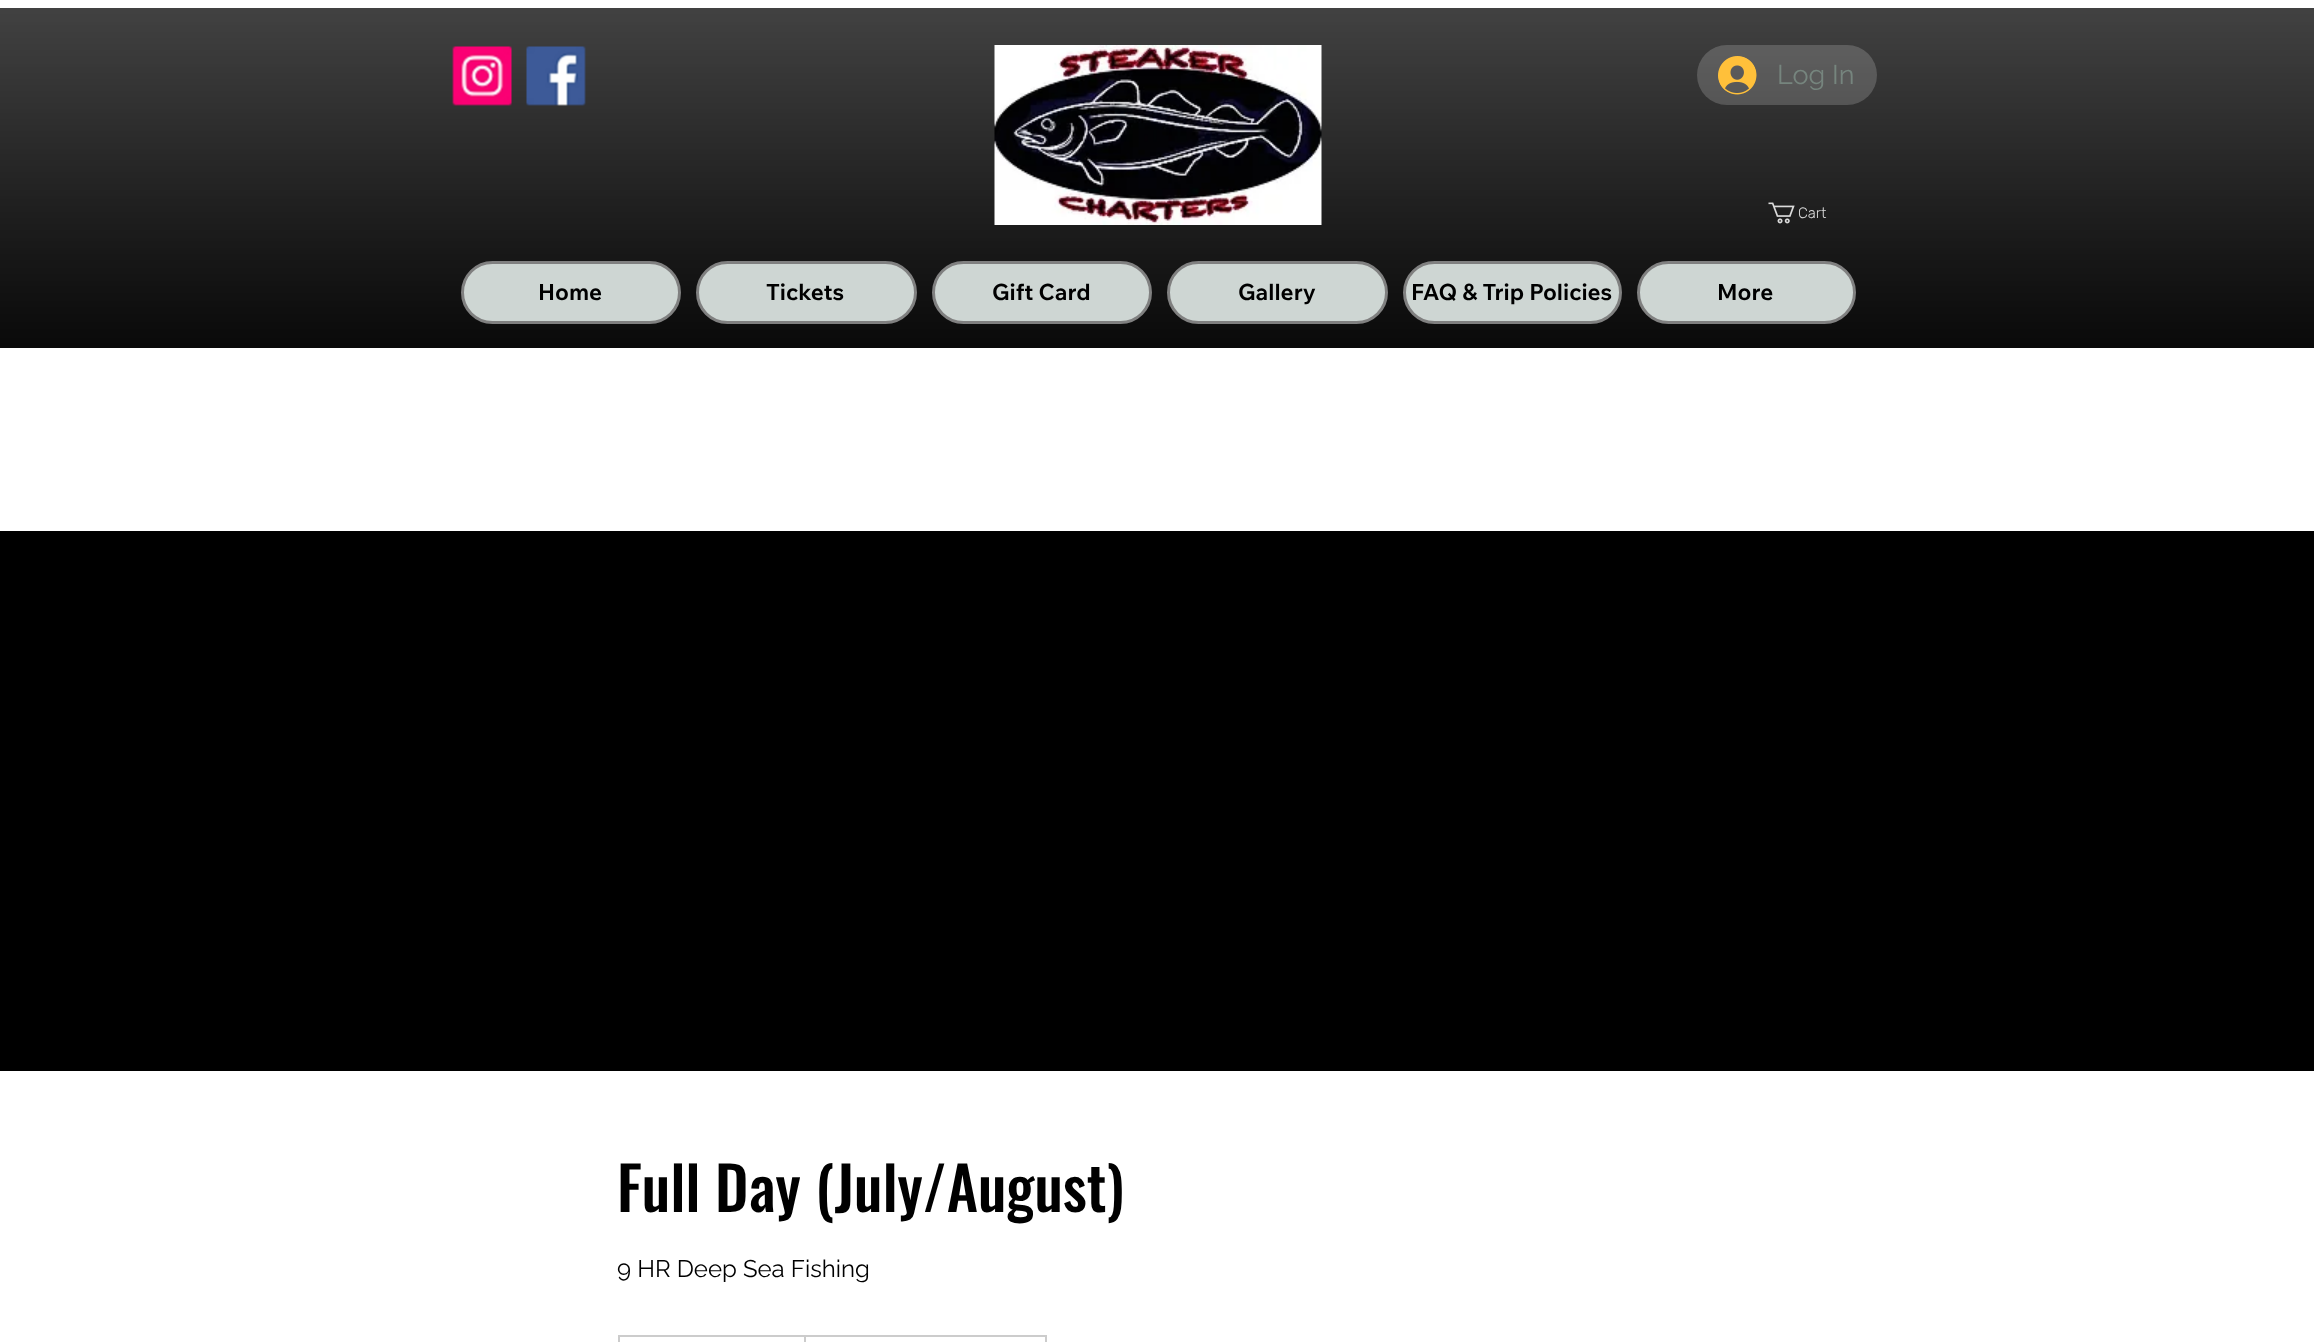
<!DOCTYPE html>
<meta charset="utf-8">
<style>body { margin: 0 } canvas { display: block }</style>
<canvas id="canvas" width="2314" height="1342"></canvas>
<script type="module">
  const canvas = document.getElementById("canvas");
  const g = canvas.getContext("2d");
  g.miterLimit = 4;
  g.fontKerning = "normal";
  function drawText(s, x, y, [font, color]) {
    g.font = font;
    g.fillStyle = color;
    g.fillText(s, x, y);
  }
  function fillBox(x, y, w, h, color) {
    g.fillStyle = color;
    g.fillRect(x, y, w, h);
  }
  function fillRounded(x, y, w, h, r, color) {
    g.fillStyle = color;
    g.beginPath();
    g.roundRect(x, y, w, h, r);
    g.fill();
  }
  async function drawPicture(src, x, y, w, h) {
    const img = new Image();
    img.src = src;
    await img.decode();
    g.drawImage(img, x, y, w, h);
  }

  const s1 = ["27px Raleway", "#76857E"];
  const s2 = ["300 15px Rubik", "#DBDBDB"];
  const s3 = ["bold 22.5px Wix Madefor Text", "#000000"];
  const s4 = ["500 60px Oswald", "#000000"];
  const s5 = ["24px Raleway", "#000000"];

  fillBox(0, 0, 2314, 1342, "#FFFFFF");
  fillBox(0, 8, 2314, 340, "#000000");
  await drawPicture("pic1.png", 0, 8, 2314, 340);
  await drawPicture("pic2.png", 452, 46, 60, 60);
  await drawPicture("pic3.png", 526, 46, 60, 60);
  await drawPicture("pic4.png", 994, 45, 328, 180);
  fillRounded(1697, 45, 180, 60, 30, "rgba(246, 246, 244, 0.19)");
  await drawPicture("pic5.png", 1718, 56, 39, 39);
  drawText("Log In", 1777, 84, s1);
  await drawPicture("pic6.png", 1768, 202, 27, 22);
  drawText("Cart", 1798, 218, s2);
  g.fillStyle = "#CED6D3";
  g.beginPath();
  g.roundRect(462.5, 262.5, 217, 60, 30);
  g.fill();
  g.strokeStyle = "#808080";
  g.lineWidth = 3;
  g.stroke();
  drawText("Home", 538, 300, s3);
  g.fillStyle = "#CED6D3";
  g.beginPath();
  g.roundRect(697.5, 262.5, 218, 60, 30);
  g.fill();
  g.stroke();
  drawText("Tickets", 766, 300, s3);
  g.fillStyle = "#CED6D3";
  g.beginPath();
  g.roundRect(933.5, 262.5, 217, 60, 30);
  g.fill();
  g.stroke();
  drawText("Gift Card", 992, 300, s3);
  g.fillStyle = "#CED6D3";
  g.beginPath();
  g.roundRect(1168.5, 262.5, 218, 60, 30);
  g.fill();
  g.stroke();
  drawText("Gallery", 1238, 300, s3);
  g.fillStyle = "#CED6D3";
  g.beginPath();
  g.roundRect(1404.5, 262.5, 216, 60, 30);
  g.fill();
  g.stroke();
  drawText("FAQ & Trip Policies", 1411, 300, s3);
  g.fillStyle = "#CED6D3";
  g.beginPath();
  g.roundRect(1638.5, 262.5, 216, 60, 30);
  g.fill();
  g.stroke();
  drawText("More", 1717, 300, s3);
  fillBox(0, 531, 2314, 540, "#000000");
  drawText("Full Day (July/August)", 617, 1212, s4);
  drawText("9 HR Deep Sea Fishing", 617, 1277, s5);
  g.strokeStyle = "#CCCCCC";
  g.lineWidth = 2;
  g.strokeRect(619, 1336, 427, 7);
  g.save();
  g.beginPath();
  g.rect(620, 1337, 426, 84);
  g.clip();
  g.fillStyle = "#CCCCCC";
  g.beginPath();
  g.moveTo(804, 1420);
  g.lineTo(804, 1335);
  g.lineTo(806, 1336);
  g.lineTo(806, 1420);
  g.closePath();
  g.fill();
  g.restore();
</script>
